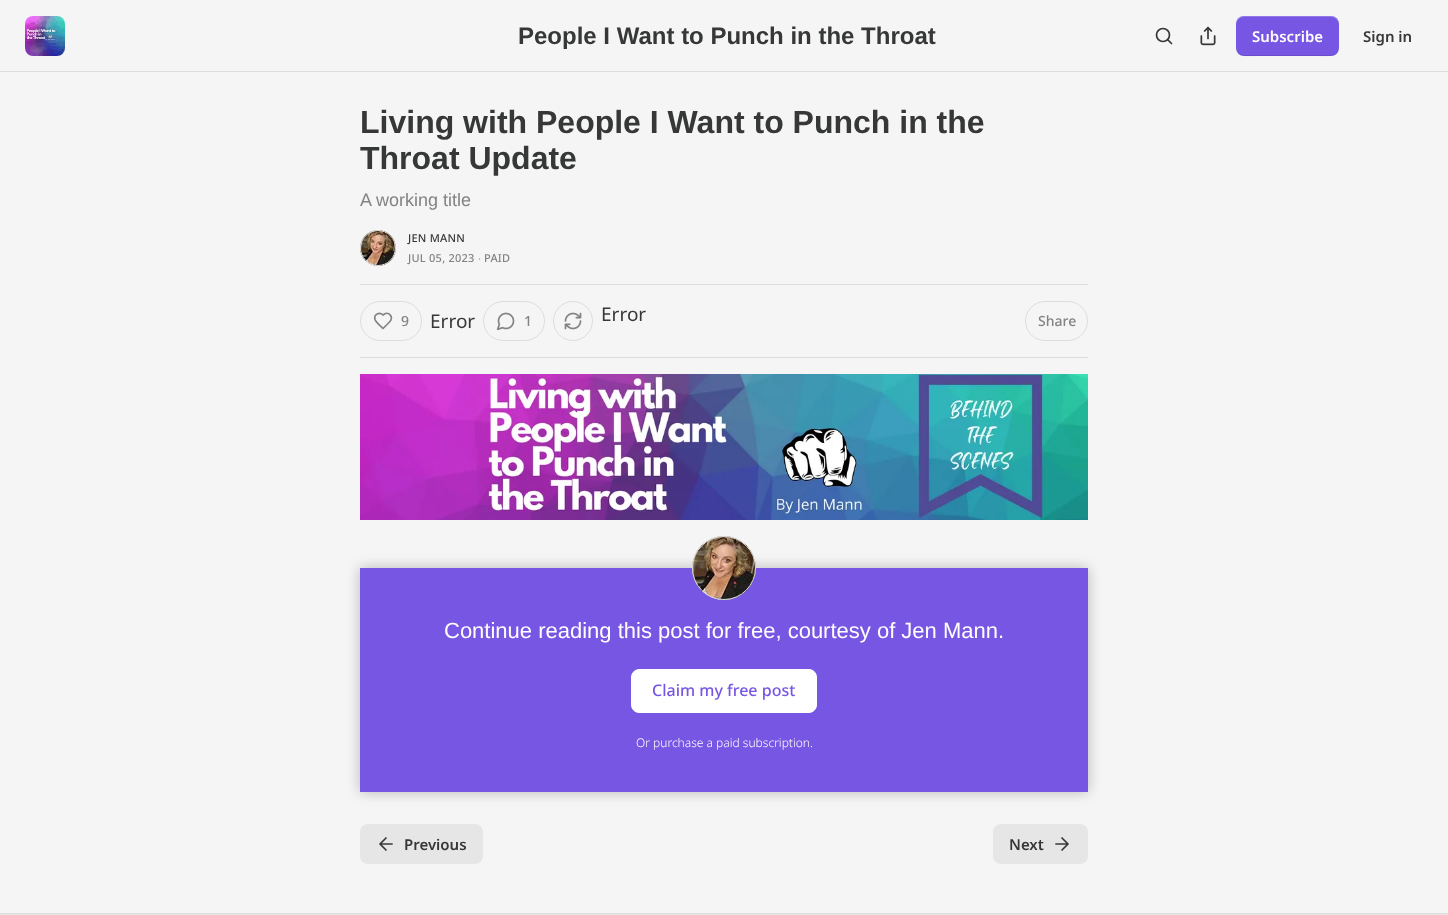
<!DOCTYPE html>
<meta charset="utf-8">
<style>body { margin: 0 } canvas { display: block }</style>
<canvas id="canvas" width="1448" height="915"></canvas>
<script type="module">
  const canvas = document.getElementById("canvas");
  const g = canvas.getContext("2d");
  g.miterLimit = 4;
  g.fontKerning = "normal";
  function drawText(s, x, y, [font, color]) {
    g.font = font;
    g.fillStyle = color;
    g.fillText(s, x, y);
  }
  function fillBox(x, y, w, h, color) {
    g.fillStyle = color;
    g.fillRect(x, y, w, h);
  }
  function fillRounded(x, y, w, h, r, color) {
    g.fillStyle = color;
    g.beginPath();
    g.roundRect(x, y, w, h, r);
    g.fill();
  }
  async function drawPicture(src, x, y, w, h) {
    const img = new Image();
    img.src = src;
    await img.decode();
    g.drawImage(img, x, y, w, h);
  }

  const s1 = ["bold 24px Liberation Sans", "#363737"];
  const s2 = ["600 15px Noto Sans", "#FFFFFF"];
  const s3 = ["600 15px Noto Sans", "#363737"];
  const s4 = ["bold 32px Liberation Sans", "#363737"];
  const s5 = ["18px Liberation Sans", "#828383"];
  const s6 = ["500 11px Noto Sans", "#363737"];
  const s7 = ["500 11px Noto Sans", "#828383"];
  const s8 = ["11px Liberation Sans", "#828383"];
  const s9 = ["500 14px Noto Sans", "#828383"];
  const s10 = ["19px Noto Sans", "#363737"];
  const s11 = ["22px Liberation Sans", "#FFFFFF"];
  const s12 = ["500 16px Noto Sans", "#7756E3"];
  const s13 = ["300 12px Noto Sans", "#FFFFFF"];

  fillBox(0, 0, 1448, 915, "#F5F5F5");
  fillBox(0, 71, 1448, 1, "#DDDDDD");
  fillRounded(25, 16, 40, 40, 8, "#FFFFFF");
  await drawPicture("pic1.png", 25, 16, 40, 40);
  drawText("People I Want to Punch in the Throat", 518, 44, s1);
  g.beginPath();
  g.arc(1163, 35, 6.5, 0, Math.PI * 2);
  g.strokeStyle = "#363737";
  g.lineWidth = 1.7;
  g.stroke();
  g.beginPath();
  g.moveTo(1171.5, 43.5);
  g.lineTo(1168, 40);
  g.lineCap = "round";
  g.lineJoin = "round";
  g.stroke();
  await drawPicture("pic2.png", 1200, 26, 16, 20);
  fillRounded(1236, 16, 103, 40, 8, "#7756E3");
  g.fillStyle = "rgba(0, 0, 0, 0.1)";
  g.beginPath();
  g.moveTo(1236, 47);
  g.bezierCurveTo(1236, 59, 1250, 56, 1258, 56);
  g.lineTo(1316, 56);
  g.bezierCurveTo(1325, 56, 1339, 59, 1339, 47);
  g.bezierCurveTo(1339, 51, 1335, 55, 1331, 55);
  g.lineTo(1244, 55);
  g.bezierCurveTo(1240, 55, 1236, 51, 1236, 47);
  g.closePath();
  g.fill();
  g.fillStyle = "rgba(255, 255, 255, 0.2)";
  g.beginPath();
  g.moveTo(1244, 17);
  g.lineTo(1331, 17);
  g.bezierCurveTo(1335, 17, 1339, 21, 1339, 25);
  g.bezierCurveTo(1339, 13, 1325, 16, 1316, 16);
  g.lineTo(1258, 16);
  g.bezierCurveTo(1250, 16, 1236, 13, 1236, 25);
  g.bezierCurveTo(1236, 21, 1240, 17, 1244, 17);
  g.closePath();
  g.fill();
  drawText("Subscribe", 1252, 42, s2);
  drawText("Sign in", 1363, 42, s3);
  drawText("Living with People I Want to Punch in the", 360, 133, s4);
  drawText("Throat Update", 360, 169, s4);
  drawText("A working title", 360, 206, s5);
  g.beginPath();
  g.arc(378, 248, 17.5, 0, Math.PI * 2);
  g.strokeStyle = "#DDDDDD";
  g.lineWidth = 1;
  g.stroke();
  await drawPicture("pic3.png", 360, 230, 36, 36);
  g.beginPath();
  g.arc(378, 248, 17.5, 0, Math.PI * 2);
  g.stroke();
  g.letterSpacing = "0.25px";
  drawText("JEN MANN", 408, 242, s6);
  drawText("JUL 05, 2023", 408, 262, s7);
  drawText("∙", 478, 262, s8);
  drawText("PAID", 484, 262, s7);
  fillBox(360, 284, 728, 1, "#DDDDDD");
  fillBox(360, 357, 728, 1, "#DDDDDD");
  g.beginPath();
  g.roundRect(360.5, 301.5, 61, 39, 19.5);
  g.lineJoin = "miter";
  g.stroke();
  g.beginPath();
  g.moveTo(389, 322.5);
  g.bezierCurveTo(395, 316.5, 388, 310.5, 383, 315);
  g.bezierCurveTo(379.5, 311.5, 373.5, 314.5, 375, 319.5);
  g.bezierCurveTo(376, 322.5, 381, 326.5, 383, 328.5);
  g.closePath();
  g.strokeStyle = "#828383";
  g.lineWidth = 1.7;
  g.lineJoin = "round";
  g.stroke();
  g.letterSpacing = "0px";
  drawText("9", 401, 326, s9);
  drawText("Error", 430, 328, s10);
  g.beginPath();
  g.roundRect(483.5, 301.5, 61, 39, 19.5);
  g.strokeStyle = "#DDDDDD";
  g.lineWidth = 1;
  g.lineJoin = "miter";
  g.stroke();
  await drawPicture("pic4.png", 496, 312, 19, 19);
  drawText("1", 524, 326, s9);
  g.beginPath();
  g.arc(573, 321, 19.5, 0, Math.PI * 2);
  g.stroke();
  await drawPicture("pic5.png", 564, 312, 18, 18);
  drawText("Error", 601, 321, s10);
  g.beginPath();
  g.roundRect(1025.5, 301.5, 62, 39, 19.5);
  g.stroke();
  drawText("Share", 1038, 326, s9);
  await drawPicture("pic6.png", 360, 374, 728, 146);
  fillBox(360, 568, 728, 224, "#7756E3");
  g.fillStyle = "#FFFFFF";
  g.beginPath();
  g.roundRect(631.5, 669.5, 185, 43, 7.5);
  g.fill();
  g.strokeStyle = "#FFFFFF";
  g.stroke();
  g.save();
  g.beginPath();
  g.moveTo(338, 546);
  g.lineTo(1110, 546);
  g.lineTo(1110, 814);
  g.lineTo(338, 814);
  g.closePath();
  g.moveTo(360, 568);
  g.lineTo(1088, 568);
  g.lineTo(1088, 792);
  g.lineTo(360, 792);
  g.closePath();
  g.clip("evenodd");
  g.fillStyle = "rgba(0, 0, 0, 0.25)";
  g.filter = "blur(7px)";
  g.beginPath();
  g.rect(360, 568, 728, 224);
  g.fill();
  g.filter = "none";
  g.restore();
  g.beginPath();
  g.arc(724, 568, 31.5, 0, Math.PI * 2);
  g.strokeStyle = "#DDDDDD";
  g.stroke();
  await drawPicture("pic7.png", 692, 536, 64, 64);
  g.beginPath();
  g.arc(724, 568, 31.5, 0, Math.PI * 2);
  g.stroke();
  drawText("Continue reading this post for free, courtesy of Jen Mann.", 444, 638, s11);
  drawText("Claim my free post", 652, 696, s12);
  drawText("Or purchase a paid subscription.", 636, 747, s13);
  fillRounded(360, 824, 123, 40, 8, "#E6E6E6");
  g.beginPath();
  g.moveTo(386, 850);
  g.lineTo(380, 844);
  g.lineTo(386, 838);
  g.moveTo(392, 844);
  g.lineTo(380, 844);
  g.strokeStyle = "#363737";
  g.lineWidth = 1.7;
  g.lineJoin = "round";
  g.stroke();
  drawText("Previous", 404, 850, s3);
  fillRounded(993, 824, 95, 40, 8, "#E6E6E6");
  drawText("Next", 1009, 850, s3);
  g.beginPath();
  g.moveTo(1056, 844);
  g.lineTo(1068, 844);
  g.moveTo(1062, 838);
  g.lineTo(1068, 844);
  g.lineTo(1062, 850);
  g.stroke();
  fillBox(0, 914, 1448, 1, "#E6E6E6");
  fillBox(0, 913, 1448, 1, "#DDDDDD");
</script>
